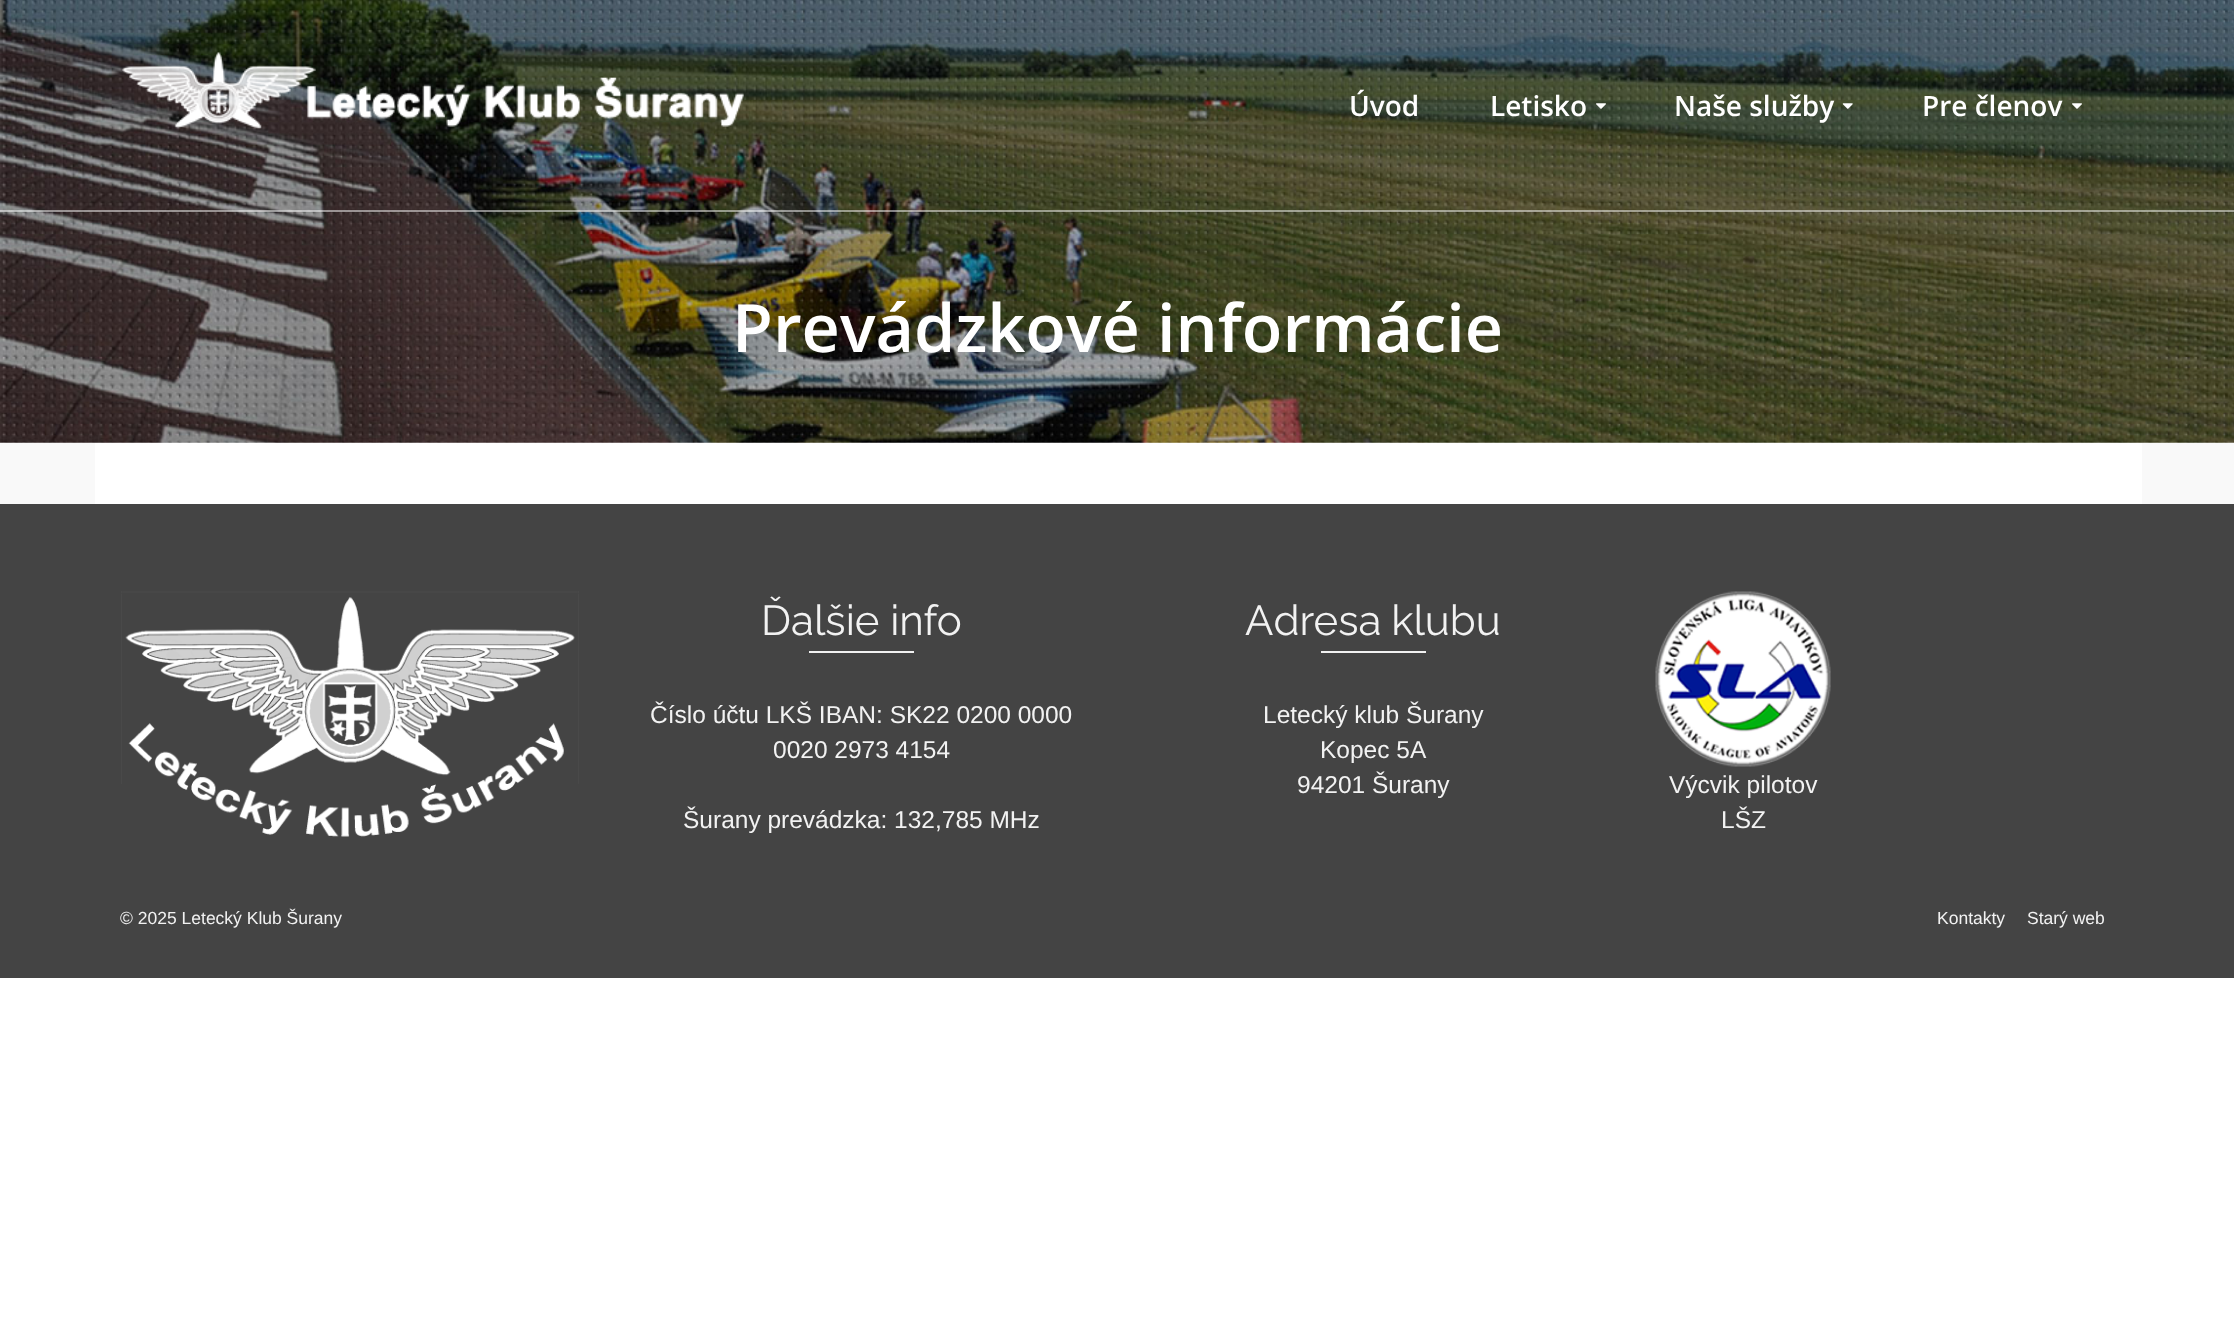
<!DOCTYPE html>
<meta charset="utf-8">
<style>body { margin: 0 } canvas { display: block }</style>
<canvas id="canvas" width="2234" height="1329"></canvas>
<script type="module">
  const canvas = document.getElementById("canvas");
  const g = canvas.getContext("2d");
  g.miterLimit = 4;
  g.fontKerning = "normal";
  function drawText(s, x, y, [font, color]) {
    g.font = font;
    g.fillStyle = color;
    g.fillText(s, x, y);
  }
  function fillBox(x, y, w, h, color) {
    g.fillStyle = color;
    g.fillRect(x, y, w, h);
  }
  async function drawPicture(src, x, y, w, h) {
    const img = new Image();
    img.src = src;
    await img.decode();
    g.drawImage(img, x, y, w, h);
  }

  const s1 = ["600 28px Open Sans", "#FFFFFF"];
  const s2 = ["600 66.5px Open Sans", "#FFFFFF"];
  const s3 = ["42px Raleway", "#F2F2F2"];
  const s4 = ["24.5px Liberation Sans", "#F2F2F2"];
  const s5 = ["17.5px Liberation Sans", "#F2F2F2"];

  fillBox(0, 0, 2234, 1329, "#FFFFFF");
  fillBox(0, 442, 2234, 62, "#F9F9F9");
  await drawPicture("pic5.png", 0, 0, 2234, 443);
  fillBox(0, 210, 2234, 2, "rgba(255, 255, 255, 0.5)");
  await drawPicture("pic1.png", 122, 52, 622, 77);
  drawText("Úvod", 1349, 116, s1);
  drawText("Letisko", 1490, 116, s1);
  await drawPicture("pic2.png", 1596, 103, 10, 6);
  drawText("Naše služby", 1674, 116, s1);
  await drawPicture("pic3.png", 1842, 103, 11, 6);
  drawText("Pre členov", 1922, 116, s1);
  await drawPicture("pic4.png", 2072, 103, 10, 6);
  drawText("Prevádzkové informácie", 732, 352, s2);
  fillBox(95, 443, 2047, 61, "#FFFFFF");
  fillBox(0, 504, 2234, 474, "#444444");
  await drawPicture("pic6.png", 121, 591, 458, 246);
  drawText("Ďalšie info", 761, 635, s3);
  fillBox(809, 651, 105, 2, "#F2F2F2");
  drawText("Číslo účtu LKŠ IBAN: SK22 0200 0000", 650, 723, s4);
  drawText("0020 2973 4154", 773, 758, s4);
  drawText("Šurany prevádzka: 132,785 MHz", 683, 828, s4);
  g.wordSpacing = "-1px";
  drawText("Adresa klubu", 1245, 635, s3);
  fillBox(1321, 651, 105, 2, "#F2F2F2");
  g.wordSpacing = "0px";
  drawText("Letecký klub Šurany", 1263, 723, s4);
  drawText("Kopec 5A", 1320, 758, s4);
  drawText("94201 Šurany", 1297, 793, s4);
  await drawPicture("pic7.png", 1655, 591, 176, 176);
  drawText("Výcvik pilotov", 1669, 793, s4);
  drawText("LŠZ", 1721, 828, s4);
  drawText("© 2025 Letecký Klub Šurany", 120, 924, s5);
  drawText("Kontakty", 1937, 924, s5);
  drawText("Starý web", 2027, 924, s5);
</script>
